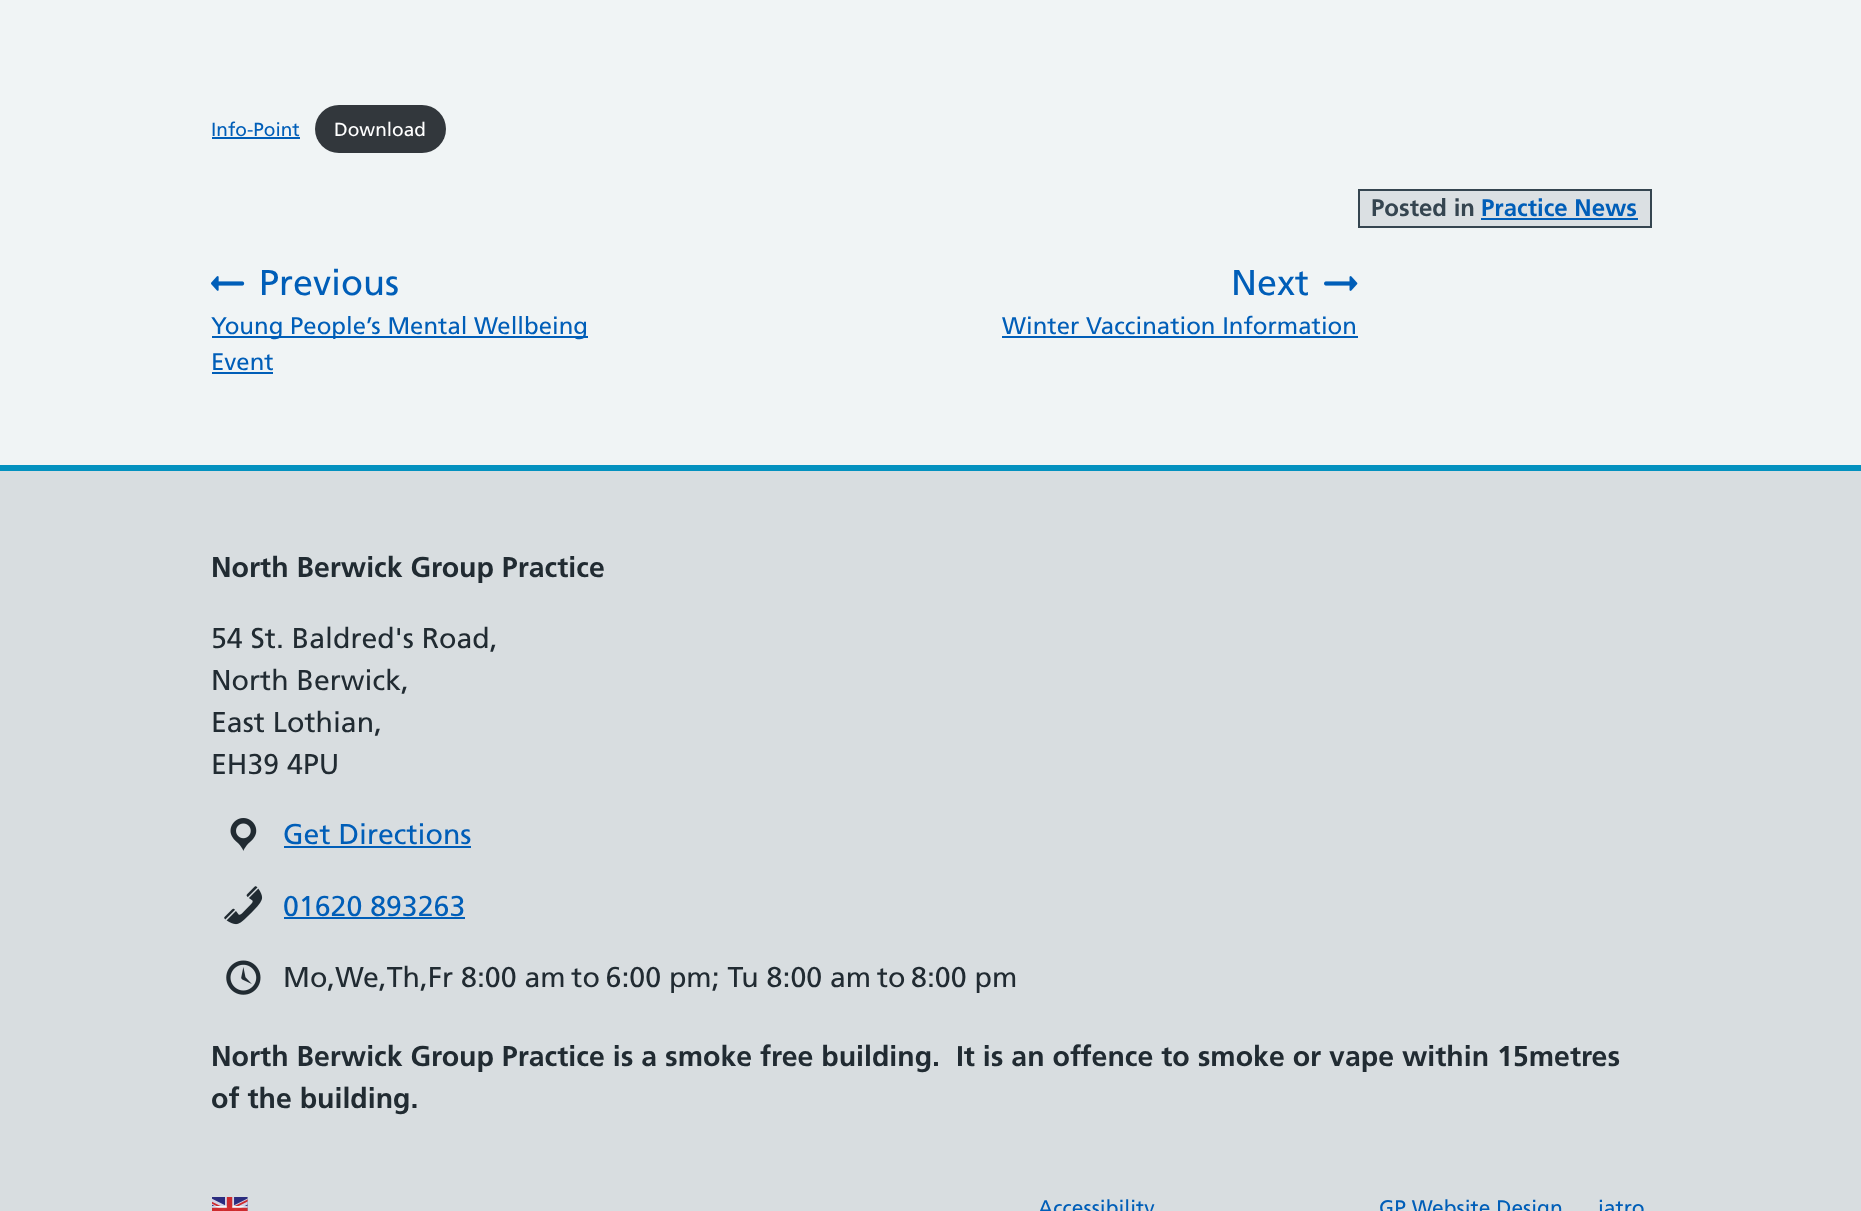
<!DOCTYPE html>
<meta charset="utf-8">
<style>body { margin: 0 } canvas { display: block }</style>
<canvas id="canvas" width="1861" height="1211"></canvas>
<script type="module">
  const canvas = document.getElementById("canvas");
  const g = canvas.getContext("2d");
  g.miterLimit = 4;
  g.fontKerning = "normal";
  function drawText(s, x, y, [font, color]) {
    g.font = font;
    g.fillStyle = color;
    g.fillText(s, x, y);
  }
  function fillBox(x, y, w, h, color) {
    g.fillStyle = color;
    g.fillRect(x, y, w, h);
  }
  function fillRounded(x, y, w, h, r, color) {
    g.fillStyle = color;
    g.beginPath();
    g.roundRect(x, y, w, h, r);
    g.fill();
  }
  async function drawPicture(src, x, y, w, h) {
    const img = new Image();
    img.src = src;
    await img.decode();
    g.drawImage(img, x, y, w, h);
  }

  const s1 = ["19px Frutiger", "#005EB8"];
  const s2 = ["19px Frutiger", "#FFFFFF"];
  const s3 = ["bold 24px Frutiger", "#354550"];
  const s4 = ["bold 24px Frutiger", "#005EB8"];
  const s5 = ["36px Frutiger", "#005EB8"];
  const s6 = ["24px Frutiger", "#005EB8"];
  const s7 = ["bold 28.5px Frutiger", "#212B32"];
  const s8 = ["28.5px Frutiger", "#212B32"];
  const s9 = ["28.5px Frutiger", "#005EB8"];
  const s10 = ["21px Frutiger", "#005EB8"];

  fillBox(0, 0, 1861, 1211, "#F0F4F5");
  drawText("Info-Point", 211, 136, s1);
  fillBox(212, 137, 88, 2, "#005EB8");
  fillRounded(315, 105, 131, 48, 24, "#32373C");
  drawText("Download", 334, 136, s2);
  g.fillStyle = "#DBE0E3";
  g.beginPath();
  g.rect(1359, 190, 292, 37);
  g.fill();
  g.strokeStyle = "#354550";
  g.lineWidth = 2;
  g.stroke();
  drawText("Posted in", 1371, 216, s3);
  drawText("Practice News", 1481, 216, s4);
  fillBox(1481, 218, 157, 2, "#005EB8");
  await drawPicture("pic1.png", 211, 276, 34, 15);
  drawText("Previous", 259, 295, s5);
  fillBox(212, 336, 376, 2, "#005EB8");
  drawText("Young People’s Mental Wellbeing", 211, 334, s6);
  drawText("Event", 211, 370, s6);
  fillBox(212, 372, 61, 2, "#005EB8");
  drawText("Next", 1231, 295, s5);
  await drawPicture("pic2.png", 1324, 276, 34, 15);
  drawText("Winter Vaccination Information", 1002, 334, s6);
  fillBox(1002, 336, 356, 2, "#005EB8");
  fillBox(0, 471, 1861, 740, "#D8DDE0");
  fillBox(0, 465, 1861, 6, "#0391BF");
  drawText("North Berwick Group Practice", 211, 577, s7);
  drawText("54 St. Baldred's Road,", 211, 648, s8);
  drawText("North Berwick,", 211, 690, s8);
  drawText("East Lothian,", 211, 732, s8);
  drawText("EH39 4PU", 211, 774, s8);
  await drawPicture("pic3.png", 230, 818, 27, 33);
  drawText("Get Directions", 283, 844, s9);
  fillBox(284, 846, 187, 2, "#005EB8");
  await drawPicture("pic4.png", 224, 886, 39, 39);
  drawText("01620 893263", 283, 916, s9);
  fillBox(284, 917, 181, 2, "#005EB8");
  await drawPicture("pic5.png", 226, 960, 35, 35);
  drawText("Mo,We,Th,Fr 8:00 am to 6:00 pm; Tu 8:00 am to 8:00 pm", 283, 987, s8);
  drawText("North Berwick Group Practice is a smoke free building.  It is an offence to smoke or vape within 15metres", 211, 1066, s7);
  drawText("of the building.", 211, 1108, s7);
  await drawPicture("pic6.png", 212, 1197, 36, 14);
  drawText("Accessibility", 1038, 1215, s10);
  drawText("GP Website Design", 1379, 1215, s10);
  drawText("iatro", 1598, 1215, s10);
</script>
